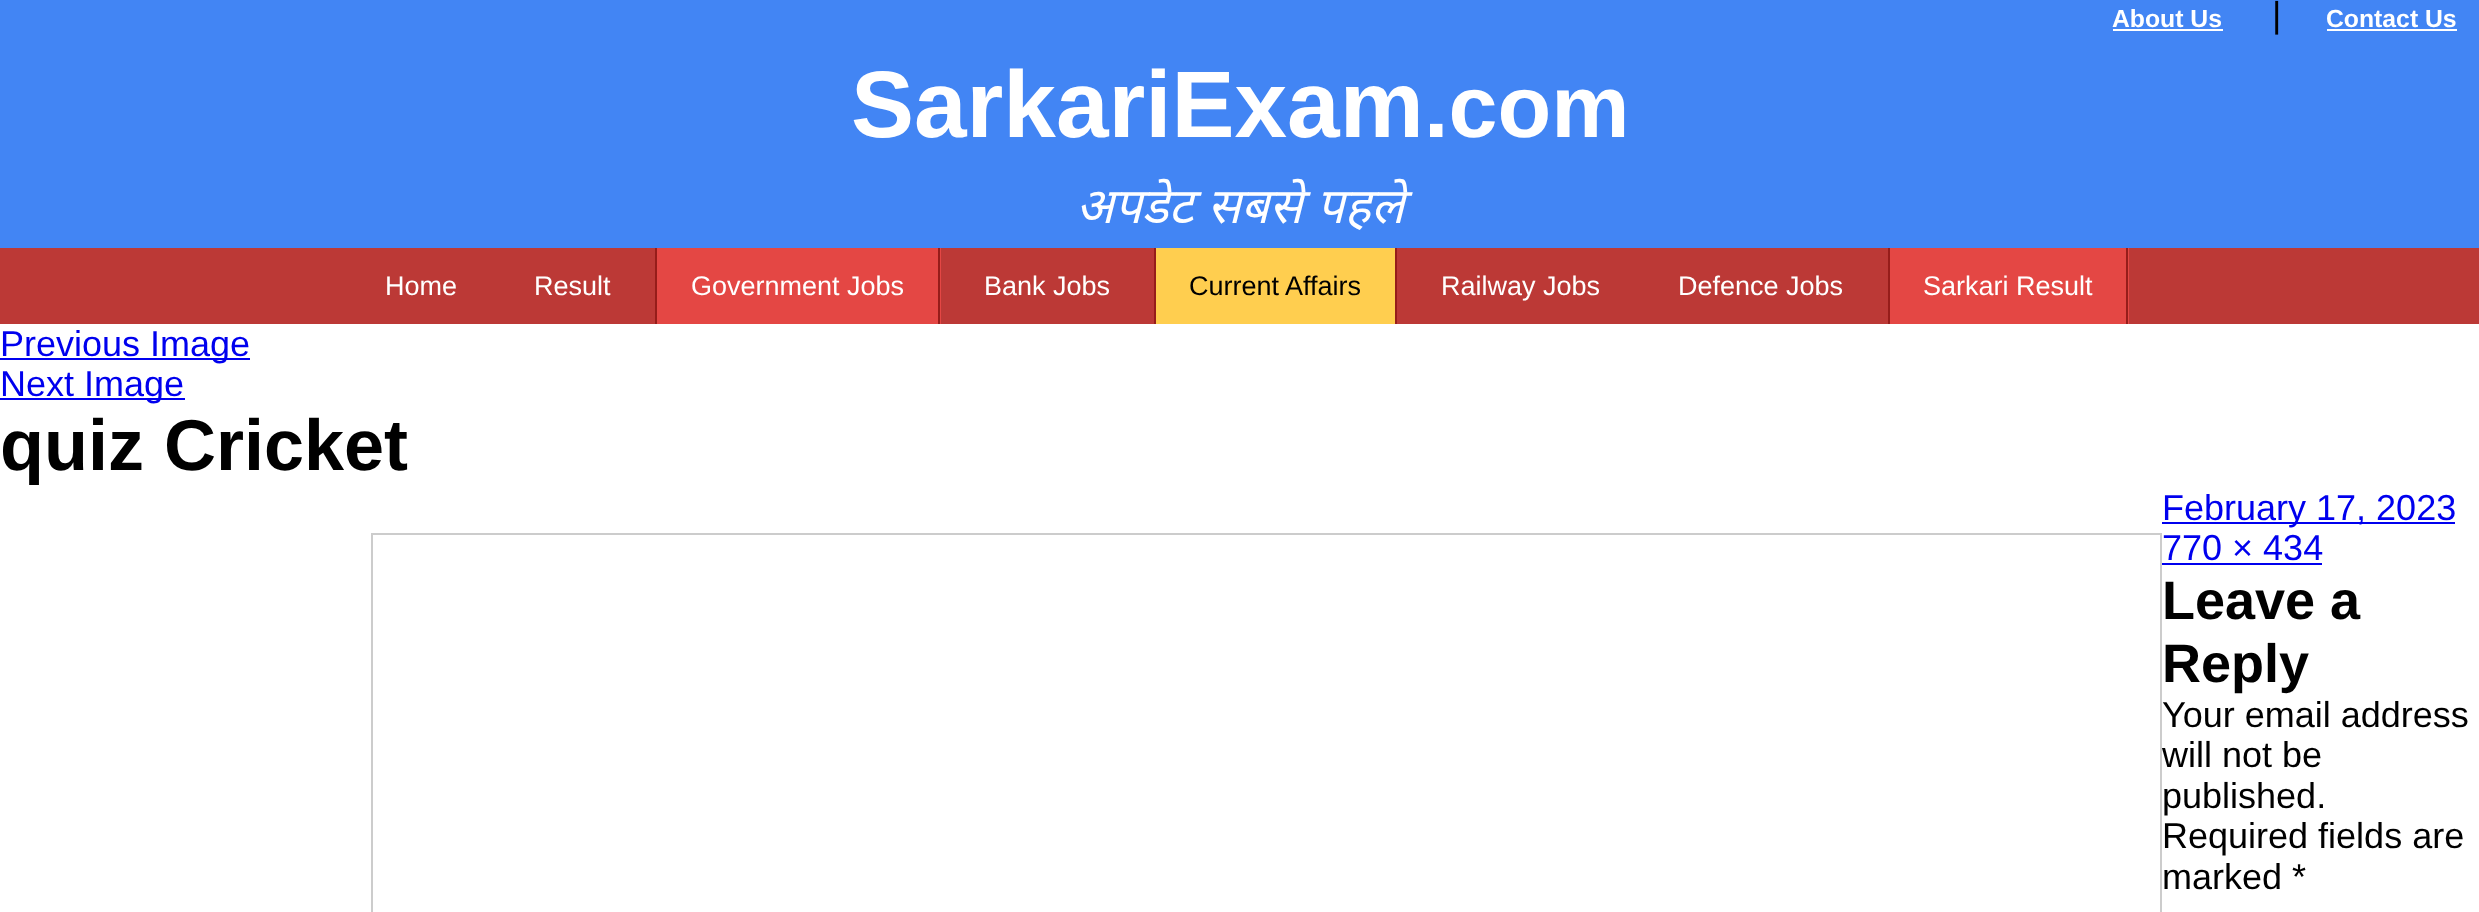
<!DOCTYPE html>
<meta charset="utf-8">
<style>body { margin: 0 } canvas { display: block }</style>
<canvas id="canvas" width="2479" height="912"></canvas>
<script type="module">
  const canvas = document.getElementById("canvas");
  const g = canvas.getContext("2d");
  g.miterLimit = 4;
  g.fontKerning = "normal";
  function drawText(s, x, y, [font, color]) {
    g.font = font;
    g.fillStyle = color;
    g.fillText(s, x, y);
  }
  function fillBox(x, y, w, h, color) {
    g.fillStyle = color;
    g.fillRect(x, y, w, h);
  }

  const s1 = ["bold 24.75px Liberation Sans", "#FFFFFF"];
  const s2 = ["36px Liberation Sans", "#000000"];
  const s3 = ["bold 94.5px Liberation Sans", "#FFFFFF"];
  const s4 = ["bold 88px Liberation Sans", "#FFFFFF"];
  const s5 = ["italic 49.5px Noto Sans", "#FFFFFF"];
  const s6 = ["27px Liberation Sans", "#FFFFFF"];
  const s7 = ["27px Liberation Sans", "#000000"];
  const s8 = ["36px Liberation Sans", "#0000EE"];
  const s9 = ["bold 72px Liberation Sans", "#000000"];
  const s10 = ["bold 54px Liberation Sans", "#000000"];

  fillBox(0, 0, 2479, 912, "#FFFFFF");
  fillBox(0, 0, 2479, 248, "#4285F4");
  drawText("About Us", 2112, 27, s1);
  fillBox(2113, 29, 110, 2, "#FFFFFF");
  drawText("|", 2272, 27, s2);
  drawText("Contact Us", 2326, 27, s1);
  fillBox(2327, 29, 130, 2, "#FFFFFF");
  drawText("SarkariExam", 851, 137, s3);
  drawText(".com", 1424, 137, s4);
  g.wordSpacing = "1px";
  drawText("अपडेट सबसे पहले", 1076, 223, s5);
  fillBox(0, 248, 2479, 76, "#BC3936");
  g.wordSpacing = "0px";
  drawText("Home", 385, 295, s6);
  drawText("Result", 534, 295, s6);
  fillBox(657, 248, 284, 76, "#E44744");
  fillBox(938, 248, 2, 76, "#961D1A");
  fillBox(655, 248, 2, 76, "#961D1A");
  drawText("Government Jobs", 691, 295, s6);
  drawText("Bank Jobs", 984, 295, s6);
  fillBox(1156, 248, 239, 76, "#FFCE4F");
  fillBox(1395, 248, 2, 76, "#961D1A");
  fillBox(1154, 248, 2, 76, "#961D1A");
  drawText("Current Affairs", 1189, 295, s7);
  drawText("Railway Jobs", 1441, 295, s6);
  drawText("Defence Jobs", 1678, 295, s6);
  fillBox(1890, 248, 239, 76, "#E44744");
  fillBox(2126, 248, 2, 76, "#961D1A");
  fillBox(1888, 248, 2, 76, "#961D1A");
  drawText("Sarkari Result", 1923, 295, s6);
  fillBox(0, 358, 250, 2, "#0000EE");
  drawText("Previous Image", 0, 356, s8);
  fillBox(0, 398, 185, 2, "#0000EE");
  drawText("Next Image", 0, 396, s8);
  drawText("quiz Cricket", 0, 470, s9);
  g.strokeStyle = "#CCCCCC";
  g.lineWidth = 2;
  g.strokeRect(372, 534, 1789, 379);
  fillBox(2162, 522, 293, 2, "#0000EE");
  drawText("February 17, 2023", 2162, 520, s8);
  drawText("770 × 434", 2162, 560, s8);
  fillBox(2162, 563, 160, 2, "#0000EE");
  drawText("Leave a", 2162, 619, s10);
  drawText("Reply", 2162, 682, s10);
  drawText("Your email address", 2162, 727, s2);
  drawText("will not be", 2162, 767, s2);
  drawText("published.", 2162, 808, s2);
  drawText("Required fields are", 2162, 848, s2);
  drawText("marked *", 2162, 889, s2);
</script>
